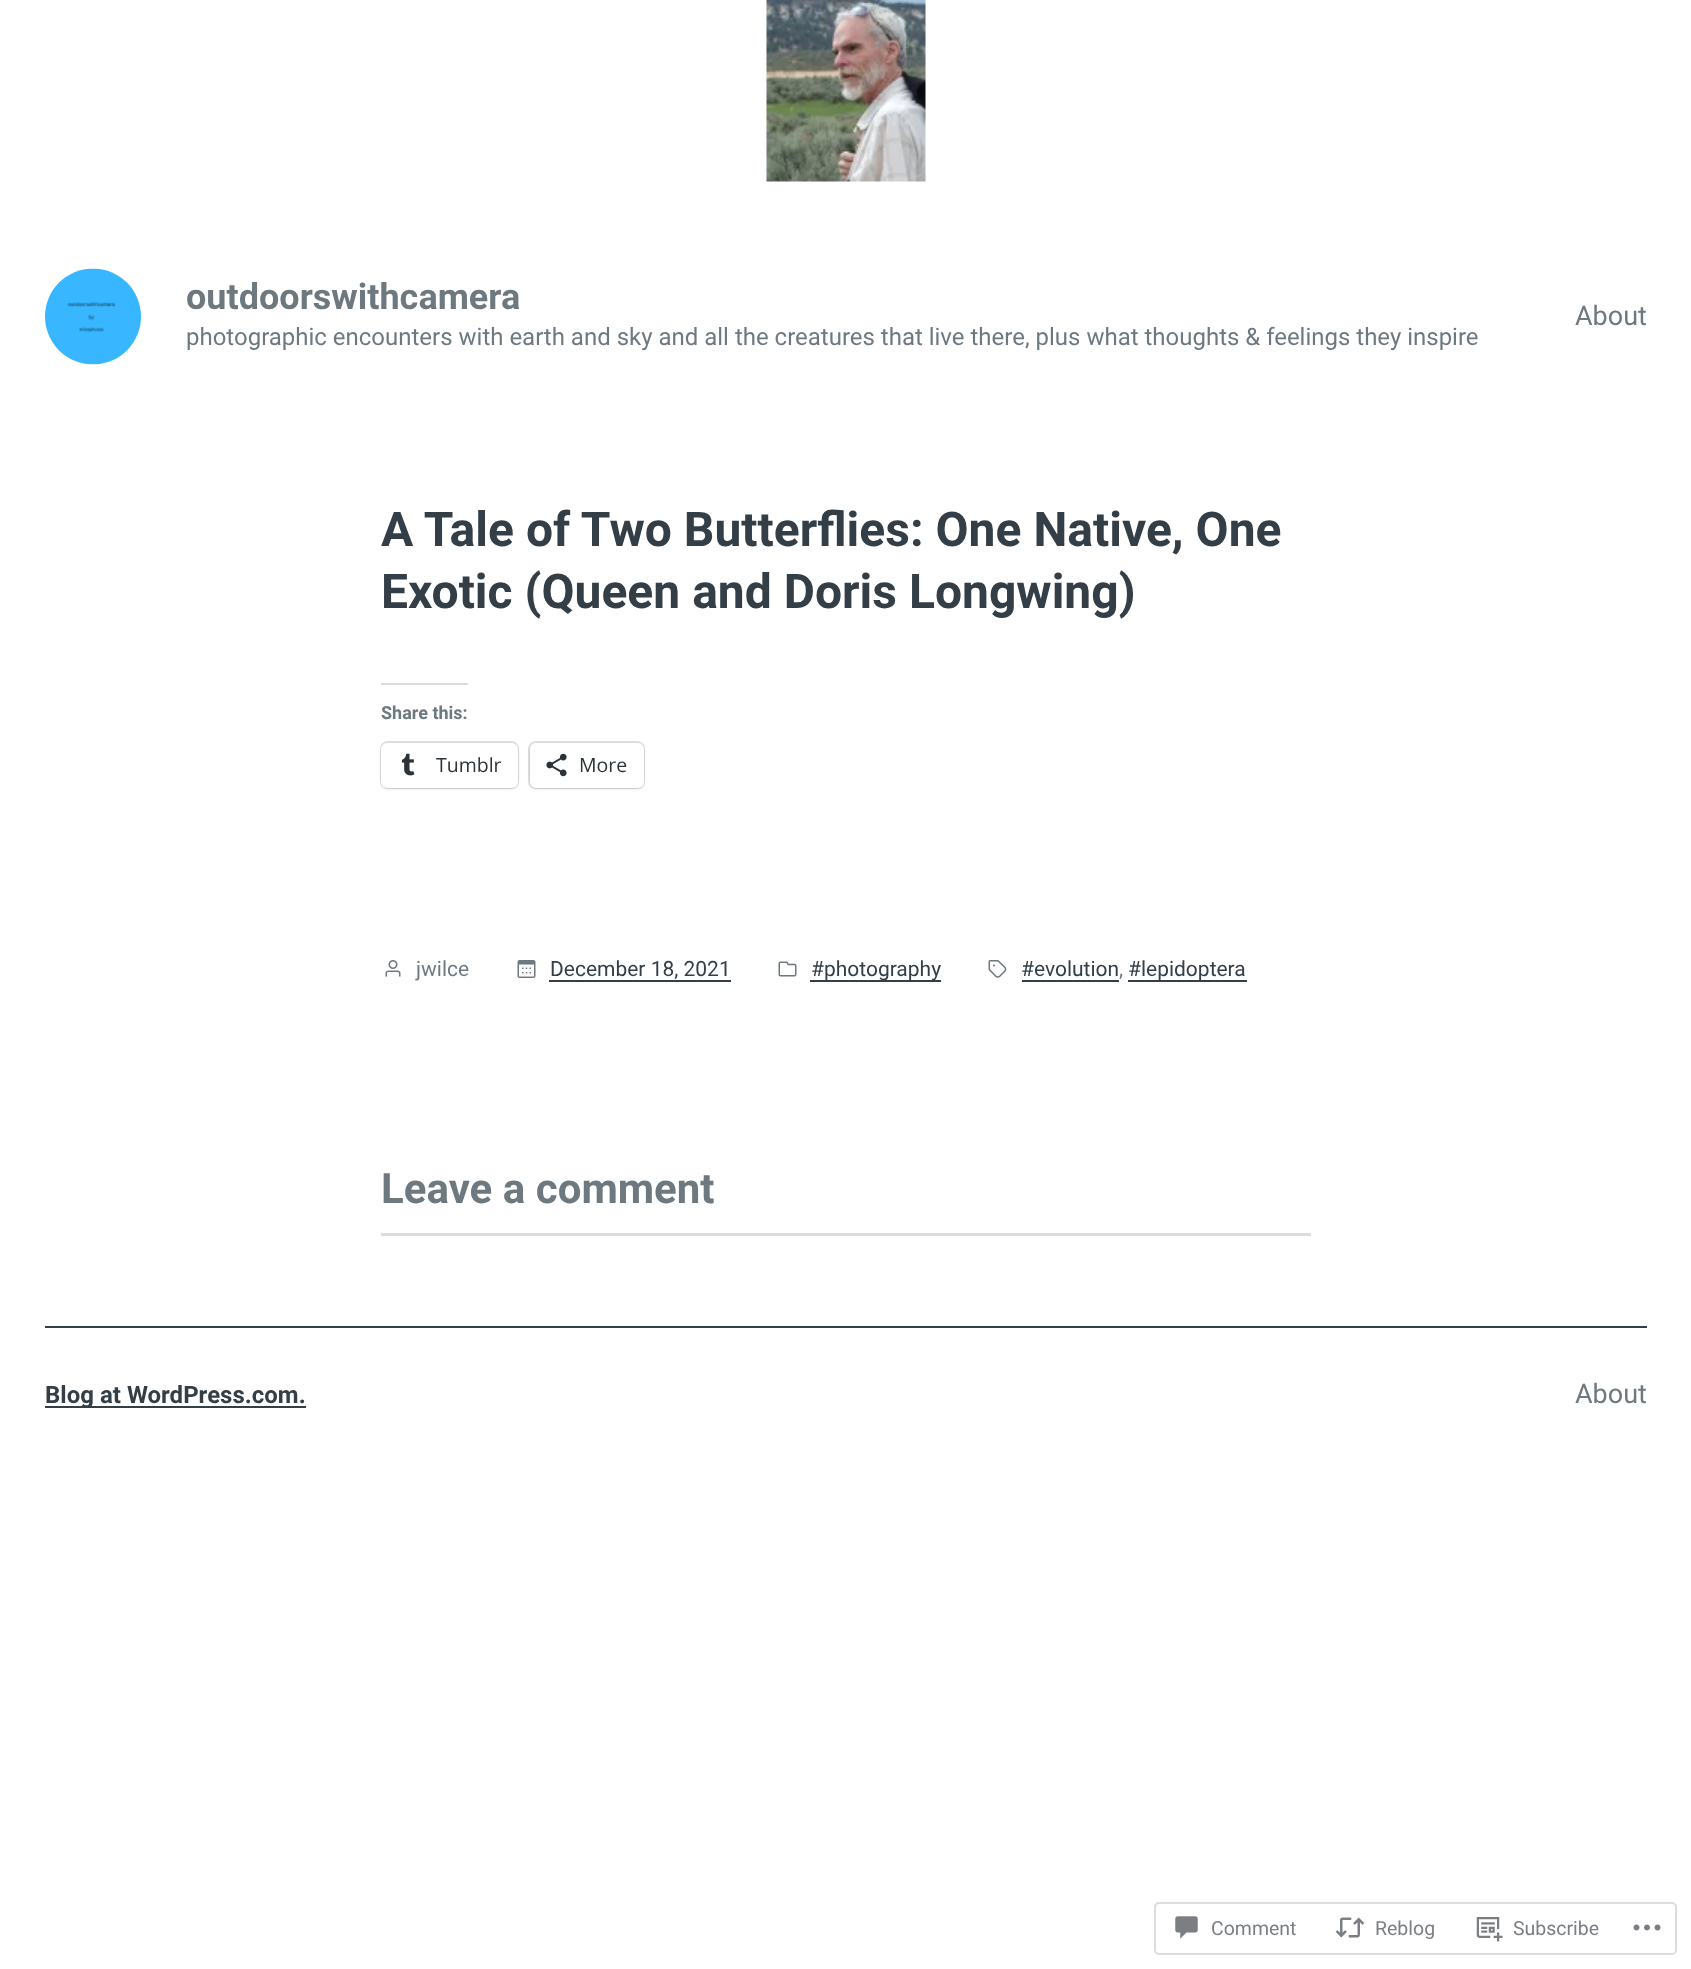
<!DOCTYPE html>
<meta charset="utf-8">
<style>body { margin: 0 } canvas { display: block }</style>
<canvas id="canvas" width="1691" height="1969"></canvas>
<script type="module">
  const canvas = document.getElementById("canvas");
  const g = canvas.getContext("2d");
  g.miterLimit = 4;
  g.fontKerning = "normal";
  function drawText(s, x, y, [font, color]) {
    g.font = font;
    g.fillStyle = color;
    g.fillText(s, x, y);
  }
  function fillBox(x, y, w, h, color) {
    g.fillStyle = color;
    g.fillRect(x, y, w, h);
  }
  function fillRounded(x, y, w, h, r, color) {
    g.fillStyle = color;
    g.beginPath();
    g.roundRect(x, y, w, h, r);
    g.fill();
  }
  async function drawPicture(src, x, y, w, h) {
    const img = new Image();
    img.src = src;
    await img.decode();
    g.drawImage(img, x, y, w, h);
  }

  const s1 = ["bold 36px Roboto", "#6E797F"];
  const s2 = ["24px Roboto", "#6E797F"];
  const s3 = ["27px Roboto", "#6E797F"];
  const s4 = ["bold 48px Roboto", "#343E47"];
  const s5 = ["bold 18px Roboto", "#6E797F"];
  const s6 = ["19.5px Open Sans", "#2C3338"];
  const s7 = ["21px Roboto", "#6E797F"];
  const s8 = ["21px Roboto", "#343E47"];
  const s9 = ["bold 42px Roboto", "#6E797F"];
  const s10 = ["bold 24px Roboto", "#343E47"];
  const s11 = ["19.5px Roboto", "#7B7F85"];

  fillBox(0, 0, 1691, 1969, "#FFFFFF");
  await drawPicture("pic1.png", 766, 0, 160, 182);
  await drawPicture("pic2.png", 45, 268, 96, 97);
  drawText("outdoorswithcamera", 186, 309, s1);
  drawText("photographic encounters with earth and sky and all the creatures that live there, plus what thoughts & feelings they inspire", 186, 345, s2);
  drawText("About", 1575, 325, s3);
  drawText("A Tale of Two Butterflies: One Native, One", 381, 546, s4);
  drawText("Exotic (Queen and Doris Longwing)", 381, 608, s4);
  fillBox(381, 683, 87, 2, "#DCDCDE");
  drawText("Share this:", 381, 719, s5);
  g.beginPath();
  g.roundRect(381, 742, 137, 46, 7);
  g.strokeStyle = "#E0E0E0";
  g.lineWidth = 2;
  g.stroke();
  g.fillStyle = "rgba(0, 0, 0, 0.12)";
  g.filter = "blur(1.5px)";
  g.beginPath();
  g.roundRect(381, 744, 137, 45, 6);
  g.fill();
  g.filter = "none";
  fillRounded(381, 743, 137, 45, 6, "#FFFFFF");
  await drawPicture("pic3.png", 401, 753, 14, 23);
  drawText("Tumblr", 436, 772, s6);
  g.beginPath();
  g.roundRect(529, 742, 115, 46, 7);
  g.stroke();
  g.fillStyle = "rgba(0, 0, 0, 0.12)";
  g.filter = "blur(1.5px)";
  g.beginPath();
  g.roundRect(530, 744, 114, 45, 6);
  g.fill();
  g.filter = "none";
  fillRounded(530, 743, 114, 45, 6, "#FFFFFF");
  await drawPicture("pic4.png", 546, 753, 21, 24);
  drawText("More", 579, 772, s6);
  await drawPicture("pic5.png", 385, 960, 16, 17);
  drawText("jwilce", 416, 976, s7);
  await drawPicture("pic6.png", 517, 960, 19, 18);
  drawText("December 18, 2021", 550, 976, s8);
  fillBox(549, 980, 182, 2, "#343E47");
  await drawPicture("pic7.png", 778, 961, 19, 16);
  fillBox(810, 980, 131, 2, "#343E47");
  drawText("#photography", 811, 976, s8);
  await drawPicture("pic8.png", 988, 960, 19, 18);
  drawText("#evolution", 1021, 976, s8);
  fillBox(1022, 980, 97, 2, "#343E47");
  drawText(",", 1119, 976, s7);
  fillBox(1128, 980, 119, 2, "#343E47");
  drawText("#lepidoptera", 1128, 976, s8);
  drawText("Leave a comment", 381, 1203, s9);
  fillBox(381, 1233, 930, 3, "#DCDCDE");
  fillBox(45, 1326, 1602, 2, "#343E47");
  fillBox(45, 1406, 261, 2, "#343E47");
  drawText("Blog at WordPress.com.", 45, 1403, s10);
  drawText("About", 1575, 1403, s3);
  g.beginPath();
  g.roundRect(1155, 1903, 521, 51, 4);
  g.strokeStyle = "#DDDDDF";
  g.stroke();
  await drawPicture("pic9.png", 1175, 1916, 23, 23);
  drawText("Comment", 1211, 1935, s11);
  await drawPicture("pic10.png", 1335, 1917, 30, 21);
  drawText("Reblog", 1375, 1935, s11);
  await drawPicture("pic11.png", 1476, 1917, 27, 25);
  drawText("Subscribe", 1513, 1935, s11);
  await drawPicture("pic12.png", 1633, 1924, 28, 7);
</script>
